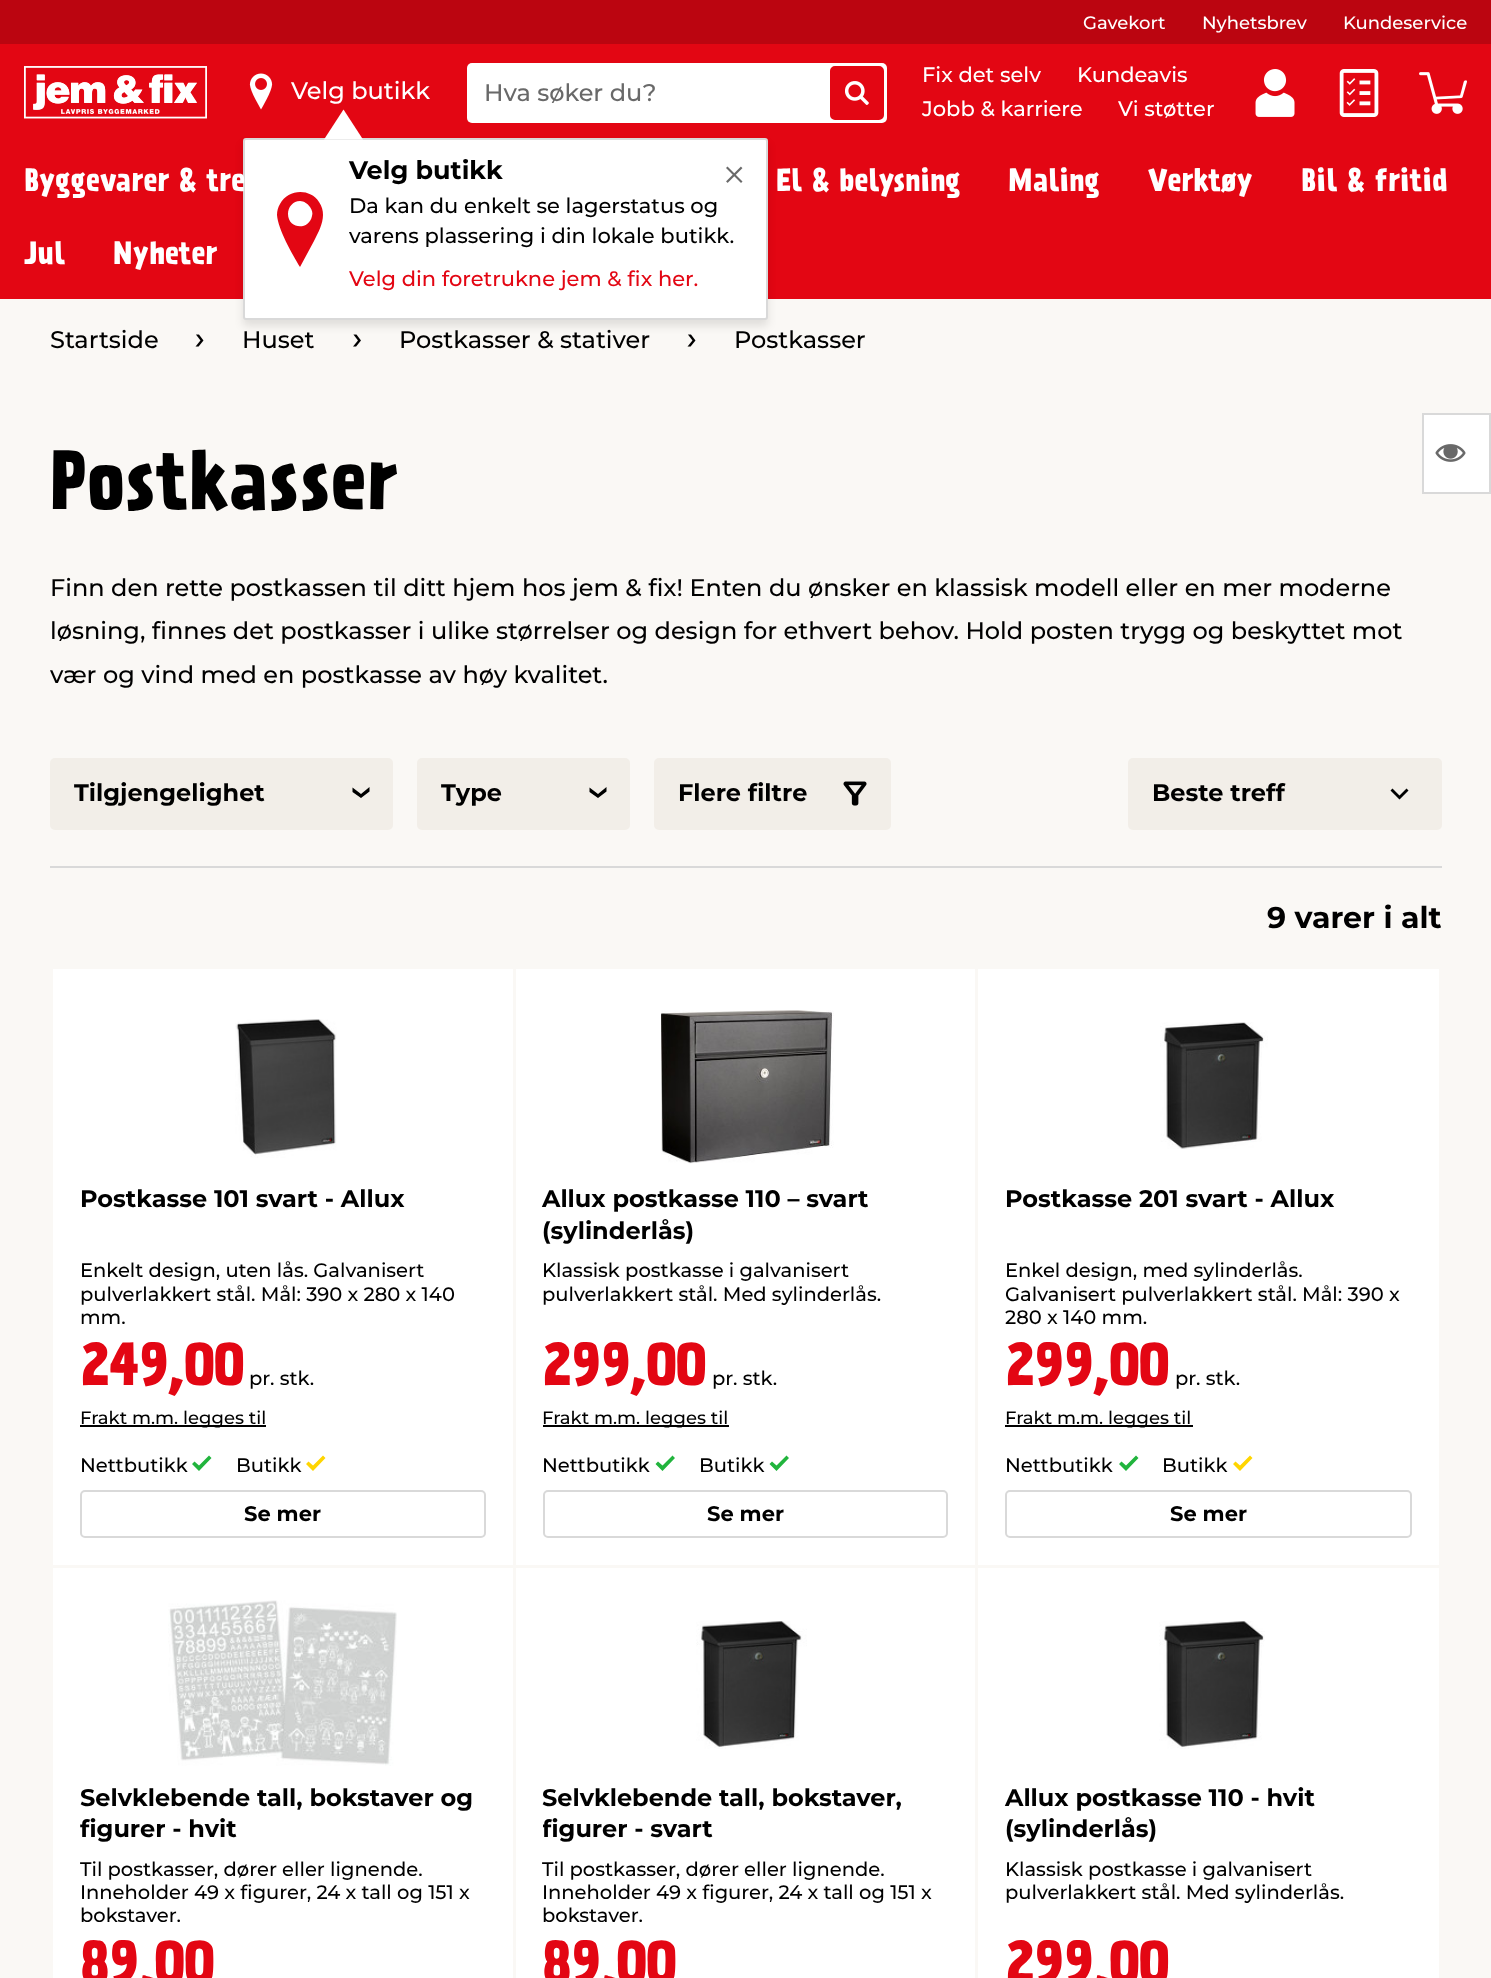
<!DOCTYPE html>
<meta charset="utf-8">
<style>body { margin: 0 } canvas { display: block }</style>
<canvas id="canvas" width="1491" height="1978"></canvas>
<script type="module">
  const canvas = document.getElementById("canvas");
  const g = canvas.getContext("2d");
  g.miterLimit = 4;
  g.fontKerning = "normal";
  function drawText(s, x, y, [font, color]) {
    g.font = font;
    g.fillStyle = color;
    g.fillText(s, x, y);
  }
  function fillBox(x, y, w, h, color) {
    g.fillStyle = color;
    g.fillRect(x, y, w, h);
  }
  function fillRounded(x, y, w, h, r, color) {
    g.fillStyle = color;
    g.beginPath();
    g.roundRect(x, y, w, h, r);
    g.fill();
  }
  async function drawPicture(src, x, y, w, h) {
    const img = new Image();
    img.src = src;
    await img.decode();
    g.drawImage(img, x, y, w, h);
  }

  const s1 = ["500 18px Montserrat", "#FFFFFF"];
  const s2 = ["500 24px Montserrat", "#FFFFFF"];
  const s3 = ["bold 25.5px Montserrat", "#000000"];
  const s4 = ["500 21px Montserrat", "#000000"];
  const s5 = ["500 21px Montserrat", "#E30613"];
  const s6 = ["500 21px Montserrat", "#FFFFFF"];
  const s7 = ["500 24px Montserrat", "#696969"];
  const s8 = ["28.5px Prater", "#FFFFFF"];
  const s9 = ["500 24px Montserrat", "#000000"];
  const s10 = ["73.5px Prater", "#000000"];
  const s11 = ["bold 24px Montserrat", "#000000"];
  const s12 = ["bold 30px Montserrat", "#000000"];
  const s13 = ["500 19.5px Montserrat", "#000000"];
  const s14 = ["54px Prater", "#E30613"];
  const s15 = ["500 18px Montserrat", "#000000"];
  const s16 = ["bold 21px Montserrat", "#000000"];

  fillBox(0, 0, 1491, 1978, "#FAF8F5");
  fillBox(0, 0, 1491, 44, "#BB0510");
  drawText("Gavekort", 1083, 29, s1);
  drawText("Nyhetsbrev", 1202, 29, s1);
  drawText("Kundeservice", 1343, 29, s1);
  fillBox(0, 44, 1491, 255, "#E30613");
  await drawPicture("pic1.png", 24, 66, 183, 53);
  await drawPicture("pic2.png", 249, 73, 24, 37);
  drawText("Velg butikk", 291, 99, s2);
  await drawPicture("pic9.png", 353, 334, 8, 13);
  await drawPicture("pic8.png", 687, 334, 9, 13);
  g.fillStyle = "rgba(0, 0, 0, 0.1)";
  g.filter = "blur(4.5px)";
  g.beginPath();
  g.roundRect(243, 144, 525, 182, 3);
  g.fill();
  g.filter = "none";
  g.fillStyle = "#FFFFFF";
  g.beginPath();
  g.roundRect(244, 139, 523, 180, 2);
  g.fill();
  g.strokeStyle = "#D9D9D9";
  g.lineWidth = 2;
  g.stroke();
  g.beginPath();
  g.moveTo(363, 139.5);
  g.lineTo(324, 139.5);
  g.lineTo(343.5, 109.5);
  g.closePath();
  g.fill();
  drawText("Velg butikk", 349, 179, s3);
  drawText("Da kan du enkelt se lagerstatus og", 349, 213, s4);
  drawText("varens plassering i din lokale butikk.", 349, 243, s4);
  drawText("Velg din foretrukne jem & fix her.", 349, 286, s5);
  await drawPicture("pic3.png", 726, 166, 17, 17);
  g.beginPath();
  g.moveTo(300, 267);
  g.lineTo(314, 241);
  g.bezierCurveTo(318, 233, 323, 224, 323, 215);
  g.bezierCurveTo(323, 211, 322, 206, 319, 202);
  g.bezierCurveTo(310, 188, 288, 189, 280, 204);
  g.bezierCurveTo(278, 207, 277, 211, 277, 215);
  g.bezierCurveTo(278, 229, 292, 254, 300, 267);
  g.closePath();
  g.moveTo(288, 214);
  g.bezierCurveTo(288, 207, 293, 201, 300, 201);
  g.bezierCurveTo(304, 201, 308, 204, 310, 207);
  g.bezierCurveTo(312, 210, 313, 213, 312, 216);
  g.bezierCurveTo(309, 231, 288, 229, 288, 214);
  g.closePath();
  g.fill();
  drawText("Fix det selv", 922, 82, s6);
  drawText("Kundeavis", 1077, 82, s6);
  drawText("Jobb & karriere", 922, 116, s6);
  drawText("Vi støtter", 1118, 116, s6);
  await drawPicture("pic4.png", 1255, 69, 40, 48);
  await drawPicture("pic5.png", 1339, 69, 40, 48);
  await drawPicture("pic6.png", 1419, 72, 48, 42);
  fillRounded(467, 63, 420, 60, 5, "#FFFFFF");
  drawText("Hva søker du?", 484, 101, s7);
  g.fillStyle = "#E30613";
  g.beginPath();
  g.roundRect(831, 67, 52, 52, 4);
  g.fill();
  g.strokeStyle = "#E30613";
  g.stroke();
  await drawPicture("pic7.png", 845, 81, 24, 24);
  drawText("Byggevarer & tre", 24, 191, s8);
  drawText("El & belysning", 776, 191, s8);
  drawText("Maling", 1008, 191, s8);
  drawText("Verktøy", 1148, 191, s8);
  drawText("Bil & fritid", 1301, 191, s8);
  drawText("Jul", 24, 264, s8);
  drawText("Nyheter", 113, 264, s8);
  drawText("Startside", 50, 348, s9);
  await drawPicture("pic8.png", 195, 334, 9, 13);
  drawText("Huset", 242, 348, s9);
  drawText("Postkasser & stativer", 399, 348, s9);
  drawText("Postkasser", 734, 348, s9);
  drawText("Postkasser", 50, 509, s10);
  drawText("Finn den rette postkassen til ditt hjem hos jem & fix! Enten du ønsker en klassisk modell eller en mer moderne", 50, 596, s9);
  drawText("løsning, finnes det postkasser i ulike størrelser og design for ethvert behov. Hold posten trygg og beskyttet mot", 50, 639, s9);
  drawText("vær og vind med en postkasse av høy kvalitet.", 50, 683, s9);
  fillBox(50, 866, 1392, 2, "#D9D9D9");
  fillRounded(50, 758, 343, 72, 5, "#F2EEE8");
  drawText("Tilgjengelighet", 74, 801, s11);
  g.beginPath();
  g.moveTo(352.5, 787.5);
  g.lineTo(352.5, 792);
  g.lineTo(361, 798);
  g.lineTo(369.5, 791.5);
  g.lineTo(369.5, 787);
  g.lineTo(361, 794);
  g.closePath();
  g.fill();
  fillRounded(417, 758, 213, 72, 5, "#F2EEE8");
  drawText("Type", 441, 801, s11);
  g.beginPath();
  g.moveTo(589.5, 787.5);
  g.lineTo(589.5, 792);
  g.lineTo(598, 798);
  g.lineTo(606.5, 791.5);
  g.lineTo(606.5, 787);
  g.lineTo(598, 794);
  g.closePath();
  g.fill();
  fillRounded(654, 758, 237, 72, 5, "#F2EEE8");
  drawText("Flere filtre", 678, 801, s11);
  await drawPicture("pic10.png", 843, 781, 24, 25);
  fillRounded(1128, 758, 314, 72, 5, "#F2EEE8");
  g.fillStyle = "#000000";
  g.beginPath();
  g.moveTo(1392.5, 788.5);
  g.lineTo(1399.5, 795.5);
  g.lineTo(1406.5, 788.5);
  g.lineTo(1408.5, 790.5);
  g.lineTo(1399.5, 799.5);
  g.lineTo(1390.5, 790.5);
  g.closePath();
  g.fill();
  drawText("Beste treff", 1152, 801, s11);
  drawText("9 varer i alt", 1267, 928, s12);
  fillBox(53, 969, 460, 596, "#FFFFFF");
  await drawPicture("pic11.png", 235, 1019, 102, 139);
  drawText("Postkasse 101 svart - Allux", 80, 1207, s11);
  drawText("Enkelt design, uten lås. Galvanisert", 80, 1277, s13);
  drawText("pulverlakkert stål. Mål: 390 x 280 x 140", 80, 1301, s13);
  drawText("mm.", 80, 1324, s13);
  drawText("249,00", 80, 1385, s14);
  drawText("pr. stk.", 249, 1385, s13);
  fillBox(80, 1425, 186, 2, "#000000");
  drawText("Frakt m.m. legges til", 80, 1424, s15);
  drawText("Nettbutikk", 80, 1472, s13);
  g.fillStyle = "#21B43D";
  g.beginPath();
  g.moveTo(199, 1465.5);
  g.lineTo(194.5, 1461.5);
  g.lineTo(192, 1464);
  g.lineTo(199, 1471);
  g.lineTo(211.5, 1458);
  g.lineTo(209, 1455.5);
  g.closePath();
  g.fill();
  drawText("Butikk", 236, 1472, s13);
  g.fillStyle = "#FFD500";
  g.beginPath();
  g.moveTo(313, 1465.5);
  g.lineTo(308.5, 1461.5);
  g.lineTo(306, 1464);
  g.lineTo(313, 1471);
  g.lineTo(325.5, 1458);
  g.lineTo(323, 1455.5);
  g.closePath();
  g.fill();
  g.beginPath();
  g.roundRect(81, 1491, 404, 46, 4);
  g.strokeStyle = "#D9D9D9";
  g.stroke();
  drawText("Se mer", 244, 1521, s16);
  fillBox(516, 969, 459, 596, "#FFFFFF");
  await drawPicture("pic12.png", 661, 1010, 173, 154);
  drawText("Allux postkasse 110 – svart", 542, 1207, s11);
  drawText("(sylinderlås)", 542, 1239, s11);
  drawText("Klassisk postkasse i galvanisert", 542, 1277, s13);
  drawText("pulverlakkert stål. Med sylinderlås.", 542, 1301, s13);
  drawText("299,00", 542, 1385, s14);
  drawText("pr. stk.", 712, 1385, s13);
  fillBox(543, 1425, 186, 2, "#000000");
  drawText("Frakt m.m. legges til", 542, 1424, s15);
  drawText("Nettbutikk", 542, 1472, s13);
  g.fillStyle = "#21B43D";
  g.beginPath();
  g.moveTo(662.5, 1465.5);
  g.lineTo(658, 1461.5);
  g.lineTo(655.5, 1464);
  g.lineTo(662.5, 1471);
  g.lineTo(675, 1458);
  g.lineTo(672.5, 1455.5);
  g.closePath();
  g.fill();
  drawText("Butikk", 699, 1472, s13);
  g.fillStyle = "#21B43D";
  g.beginPath();
  g.moveTo(776.5, 1465.5);
  g.lineTo(772, 1461.5);
  g.lineTo(769.5, 1464);
  g.lineTo(776.5, 1471);
  g.lineTo(789, 1458);
  g.lineTo(786.5, 1455.5);
  g.closePath();
  g.fill();
  g.beginPath();
  g.roundRect(544, 1491, 403, 46, 4);
  g.stroke();
  drawText("Se mer", 707, 1521, s16);
  fillBox(978, 969, 461, 596, "#FFFFFF");
  await drawPicture("pic13.png", 1160, 1022, 108, 127);
  drawText("Postkasse 201 svart - Allux", 1005, 1207, s11);
  drawText("Enkel design, med sylinderlås.", 1005, 1277, s13);
  drawText("Galvanisert pulverlakkert stål. Mål: 390 x", 1005, 1301, s13);
  drawText("280 x 140 mm.", 1005, 1324, s13);
  drawText("299,00", 1005, 1385, s14);
  drawText("pr. stk.", 1175, 1385, s13);
  fillBox(1005, 1425, 188, 2, "#000000");
  drawText("Frakt m.m. legges til", 1005, 1424, s15);
  drawText("Nettbutikk", 1005, 1472, s13);
  g.fillStyle = "#21B43D";
  g.beginPath();
  g.moveTo(1126, 1465.5);
  g.lineTo(1121.5, 1461.5);
  g.lineTo(1119, 1464);
  g.lineTo(1126, 1471);
  g.lineTo(1138.5, 1458);
  g.lineTo(1136, 1455.5);
  g.closePath();
  g.fill();
  drawText("Butikk", 1162, 1472, s13);
  g.fillStyle = "#FFD500";
  g.beginPath();
  g.moveTo(1240, 1465.5);
  g.lineTo(1235.5, 1461.5);
  g.lineTo(1233, 1464);
  g.lineTo(1240, 1471);
  g.lineTo(1252.5, 1458);
  g.lineTo(1250, 1455.5);
  g.closePath();
  g.fill();
  g.beginPath();
  g.roundRect(1006, 1491, 405, 46, 4);
  g.stroke();
  drawText("Se mer", 1170, 1521, s16);
  fillBox(53, 1568, 460, 410, "#FFFFFF");
  await drawPicture("pic14.png", 168, 1600, 229, 166);
  drawText("Selvklebende tall, bokstaver og", 80, 1806, s11);
  g.save();
  g.beginPath();
  g.rect(80, 1784, 406, 61);
  g.clip();
  drawText("figurer - hvit", 80, 1837, s11);
  g.restore();
  drawText("Til postkasser, dører eller lignende.", 80, 1876, s13);
  drawText("Inneholder 49 x figurer, 24 x tall og 151 x", 80, 1899, s13);
  drawText("bokstaver.", 80, 1922, s13);
  drawText("89,00", 80, 1983, s14);
  fillBox(516, 1568, 459, 410, "#FFFFFF");
  await drawPicture("pic15.png", 696, 1621, 111, 128);
  drawText("Selvklebende tall, bokstaver,", 542, 1806, s11);
  g.save();
  g.beginPath();
  g.rect(543, 1784, 405, 61);
  g.clip();
  drawText("figurer - svart", 542, 1837, s11);
  g.restore();
  drawText("Til postkasser, dører eller lignende.", 542, 1876, s13);
  drawText("Inneholder 49 x figurer, 24 x tall og 151 x", 542, 1899, s13);
  drawText("bokstaver.", 542, 1922, s13);
  drawText("89,00", 542, 1983, s14);
  fillBox(978, 1568, 461, 410, "#FFFFFF");
  await drawPicture("pic16.png", 1159, 1621, 106, 128);
  drawText("Allux postkasse 110 - hvit", 1005, 1806, s11);
  drawText("(sylinderlås)", 1005, 1837, s11);
  drawText("Klassisk postkasse i galvanisert", 1005, 1876, s13);
  drawText("pulverlakkert stål. Med sylinderlås.", 1005, 1899, s13);
  drawText("299,00", 1005, 1983, s14);
  g.fillStyle = "#FFFFFF";
  g.beginPath();
  g.rect(1423, 414, 67, 79);
  g.fill();
  g.stroke();
  await drawPicture("pic17.png", 1435, 444, 31, 18);
</script>
